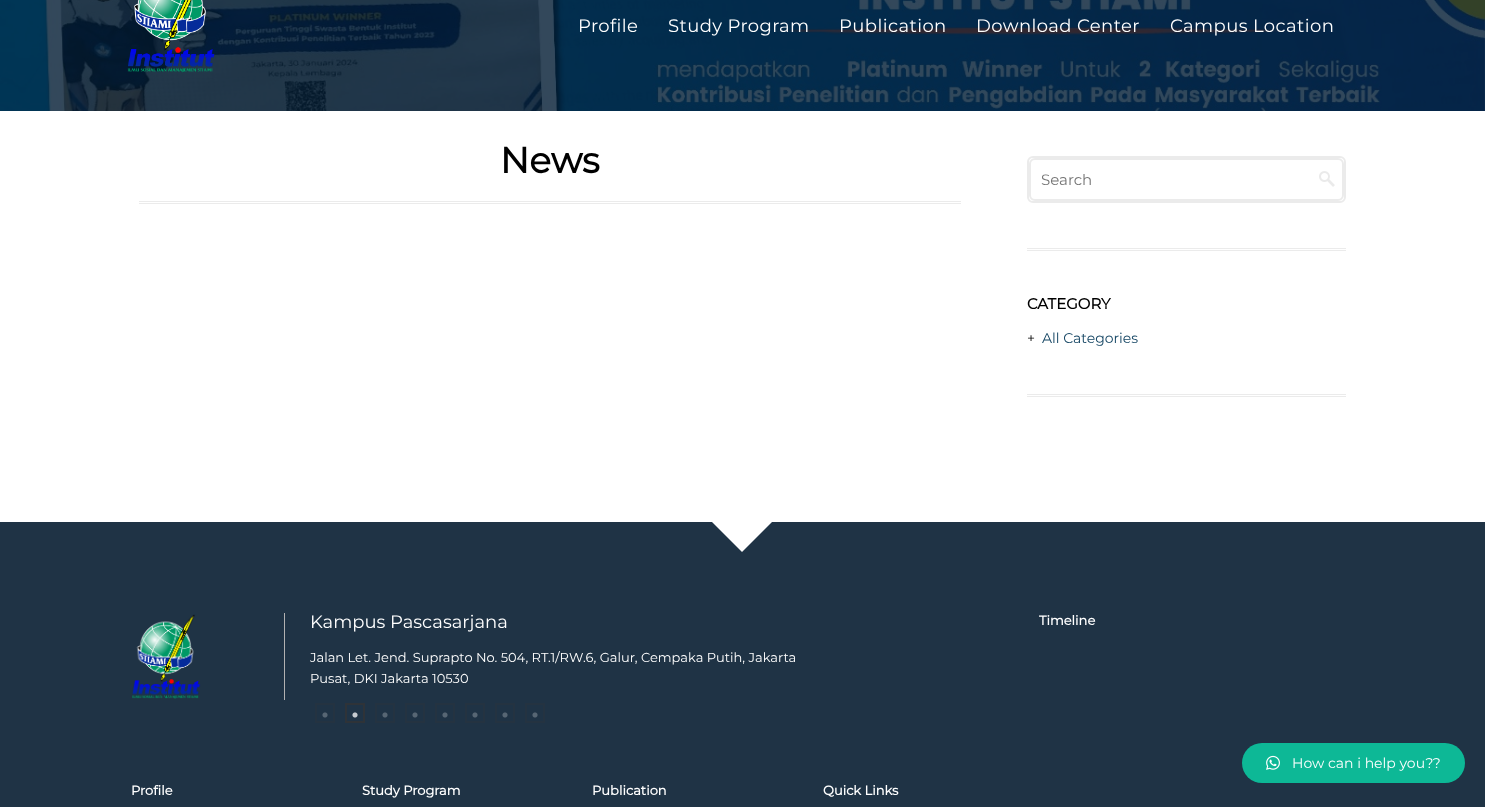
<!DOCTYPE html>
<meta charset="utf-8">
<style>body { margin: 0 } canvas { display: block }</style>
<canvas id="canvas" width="1485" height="807"></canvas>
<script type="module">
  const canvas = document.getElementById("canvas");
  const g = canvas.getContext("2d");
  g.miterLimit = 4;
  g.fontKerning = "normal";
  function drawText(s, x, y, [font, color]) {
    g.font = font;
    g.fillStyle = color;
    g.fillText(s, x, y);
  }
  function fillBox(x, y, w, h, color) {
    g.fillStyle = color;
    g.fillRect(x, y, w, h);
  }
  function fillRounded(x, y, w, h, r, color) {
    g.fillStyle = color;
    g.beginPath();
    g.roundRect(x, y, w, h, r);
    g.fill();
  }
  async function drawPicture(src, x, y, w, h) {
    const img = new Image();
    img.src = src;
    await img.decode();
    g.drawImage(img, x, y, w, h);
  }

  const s1 = ["100 18px Montserrat", "#FFFFFF"];
  const s2 = ["bold 36px Montserrat", "#000000"];
  const s3 = ["100 15px Montserrat", "#757575"];
  const s4 = ["bold 15px Montserrat", "#000000"];
  const s5 = ["100 14px Montserrat", "#000000"];
  const s6 = ["100 14px Montserrat", "#144563"];
  const s7 = ["100 13px Montserrat", "#FFFFFF"];
  const s8 = ["bold 13px Montserrat", "#FFFFFF"];
  const s9 = ["100 14px Montserrat", "#FFFFFF"];

  fillBox(0, 0, 1485, 807, "#FFFFFF");
  await drawPicture("pic1.png", 0, 0, 1485, 111);
  await drawPicture("pic2.png", 127, 0, 88, 73);
  g.letterSpacing = "0.4px";
  drawText("Profile", 578, 32, s1);
  drawText("Study Program", 668, 32, s1);
  drawText("Publication", 839, 32, s1);
  drawText("Download Center", 976, 32, s1);
  drawText("Campus Location", 1170, 32, s1);
  g.letterSpacing = "0px";
  drawText("News", 500, 173, s2);
  fillBox(139, 201, 822, 1, "#EBEBEB");
  fillBox(139, 203, 822, 1, "#EBEBEB");
  g.beginPath();
  g.roundRect(1028, 157, 317, 45, 5);
  g.strokeStyle = "#EBEBEB";
  g.lineWidth = 2;
  g.stroke();
  await drawPicture("pic3.png", 1319, 171, 16, 16);
  g.beginPath();
  g.roundRect(1030, 159, 313, 41, 5);
  g.stroke();
  drawText("Search", 1041, 185, s3);
  fillBox(1027, 248, 319, 1, "#EBEBEB");
  fillBox(1027, 250, 319, 1, "#EBEBEB");
  drawText("CATEGORY", 1027, 309, s4);
  drawText("+", 1027, 343, s5);
  drawText("All Categories", 1042, 343, s6);
  fillBox(1027, 394, 319, 1, "#EBEBEB");
  fillBox(1027, 396, 319, 1, "#EBEBEB");
  fillBox(0, 522, 1485, 285, "#1F3345");
  await drawPicture("pic4.png", 712, 522, 60, 30);
  fillBox(284, 613, 1, 87, "#B2B2B2");
  await drawPicture("pic5.png", 132, 614, 69, 85);
  drawText("Kampus Pascasarjana", 310, 628, s1);
  drawText("Jalan Let. Jend. Suprapto No. 504, RT.1/RW.6, Galur, Cempaka Putih, Jakarta", 310, 662, s7);
  drawText("Pusat, DKI Jakarta 10530", 310, 683, s7);
  g.strokeStyle = "#243341";
  g.strokeRect(316, 704, 18, 18);
  await drawPicture("pic6.png", 322, 712, 6, 6);
  g.strokeStyle = "#2E3338";
  g.strokeRect(346, 704, 18, 18);
  await drawPicture("pic7.png", 352, 712, 6, 6);
  g.strokeStyle = "#243341";
  g.strokeRect(376, 704, 18, 18);
  await drawPicture("pic6.png", 382, 712, 6, 6);
  g.strokeRect(406, 704, 18, 18);
  await drawPicture("pic6.png", 412, 712, 6, 6);
  g.strokeRect(436, 704, 18, 18);
  await drawPicture("pic6.png", 442, 712, 6, 6);
  g.strokeRect(466, 704, 18, 18);
  await drawPicture("pic6.png", 472, 712, 6, 6);
  g.strokeRect(496, 704, 18, 18);
  await drawPicture("pic6.png", 502, 712, 6, 6);
  g.strokeRect(526, 704, 18, 18);
  await drawPicture("pic6.png", 532, 712, 6, 6);
  drawText("Profile", 131, 795, s8);
  drawText("Study Program", 362, 795, s8);
  drawText("Publication", 592, 795, s8);
  drawText("Quick Links", 823, 795, s8);
  drawText("Timeline", 1039, 625, s8);
  fillRounded(1242, 743, 223, 40, 20, "#0DB896");
  await drawPicture("pic8.png", 1266, 755, 14, 15);
  drawText("How can i help you??", 1292, 768, s9);
</script>
